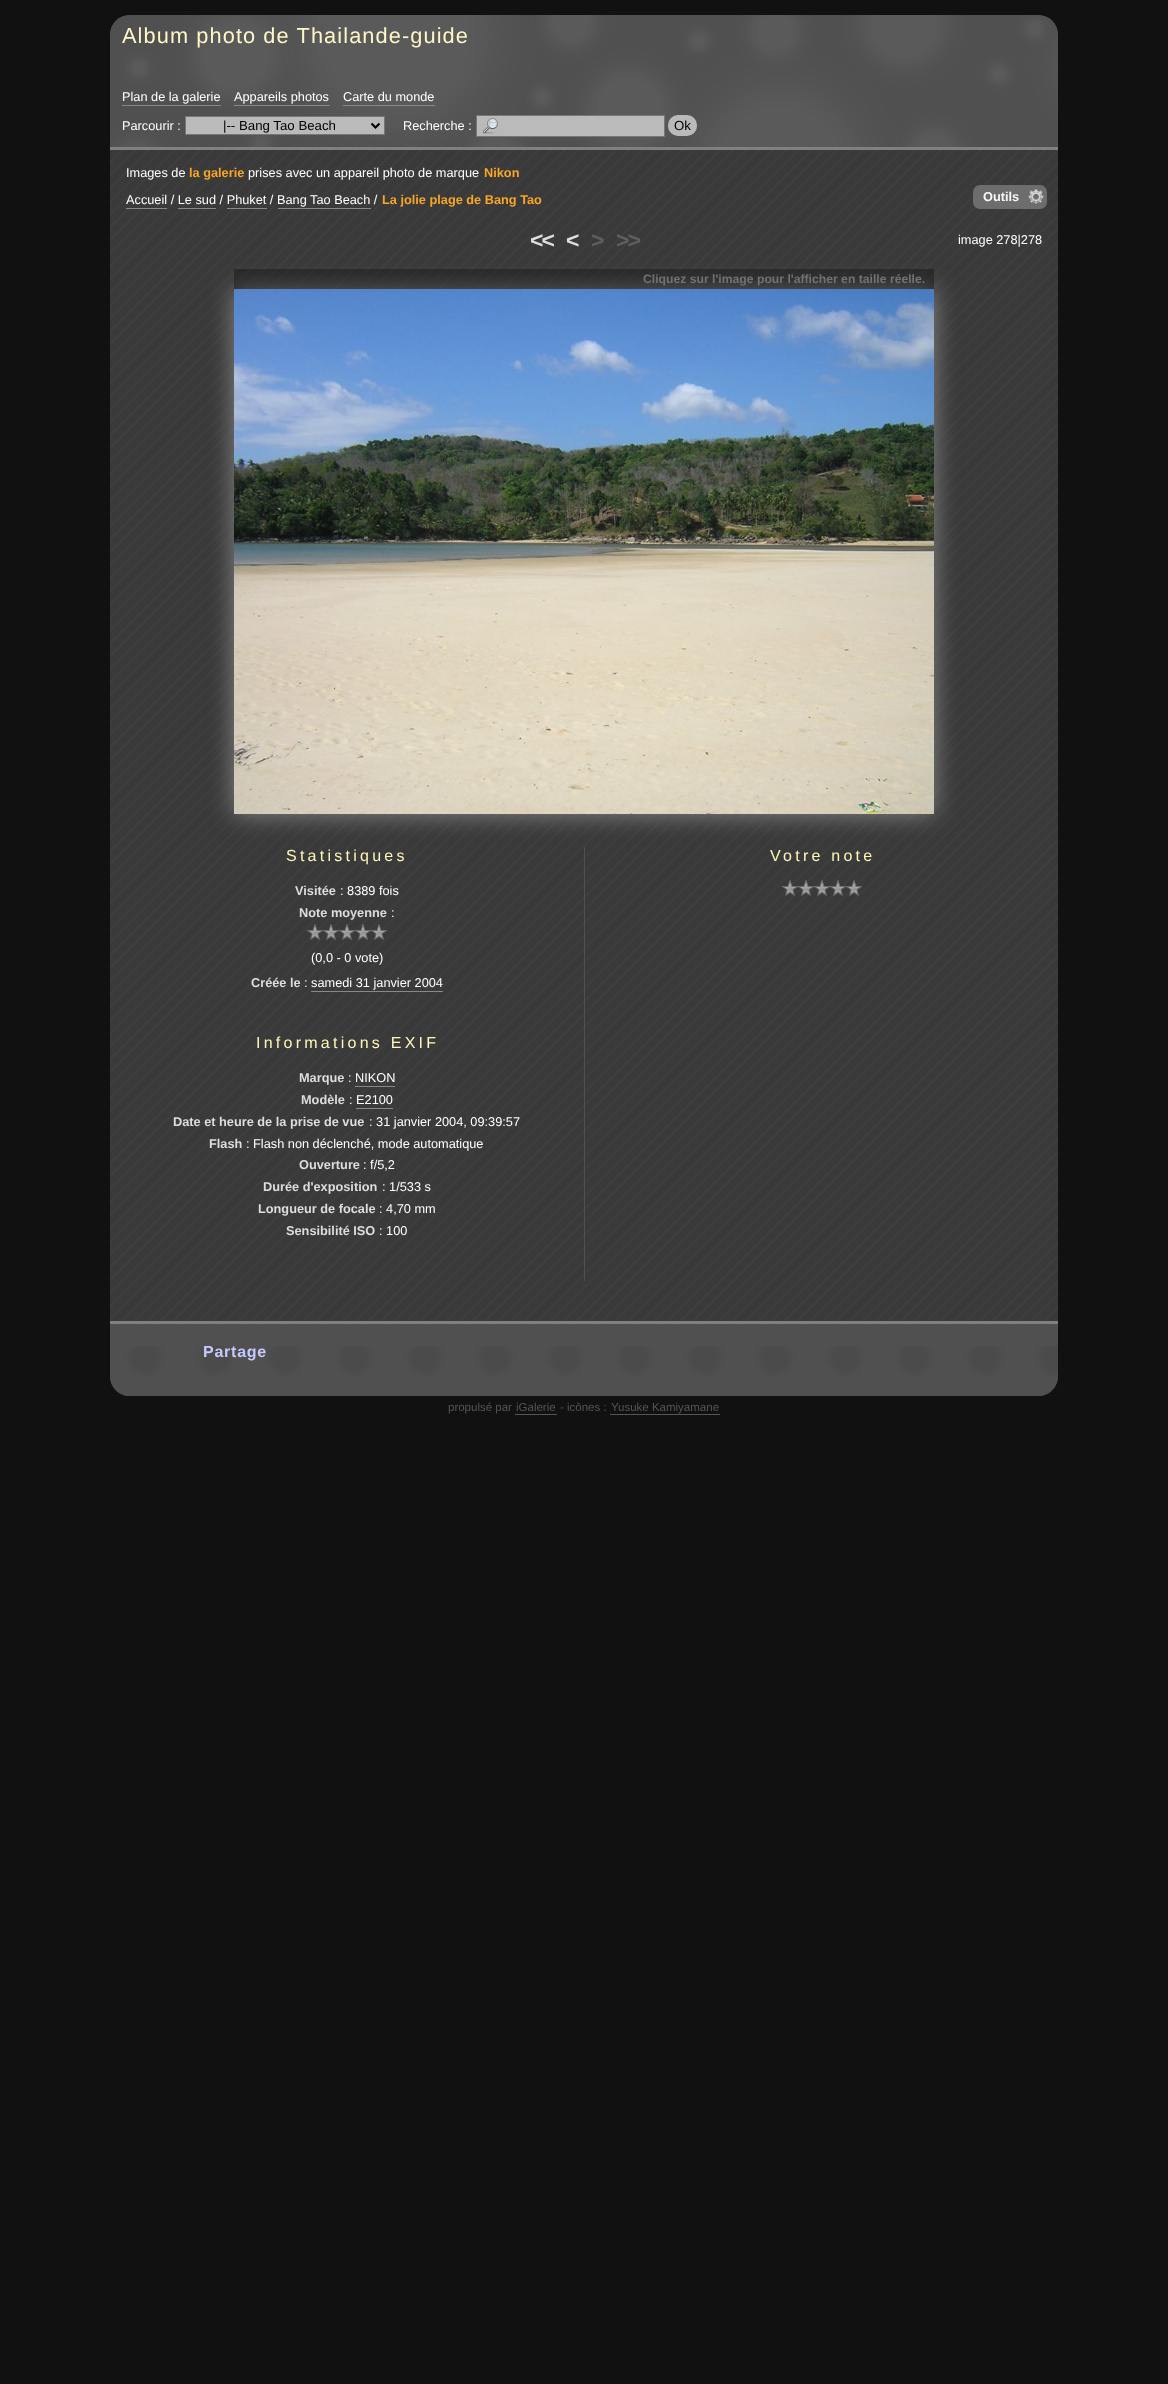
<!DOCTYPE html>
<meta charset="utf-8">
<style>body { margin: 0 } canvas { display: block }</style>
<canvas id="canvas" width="1168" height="2384"></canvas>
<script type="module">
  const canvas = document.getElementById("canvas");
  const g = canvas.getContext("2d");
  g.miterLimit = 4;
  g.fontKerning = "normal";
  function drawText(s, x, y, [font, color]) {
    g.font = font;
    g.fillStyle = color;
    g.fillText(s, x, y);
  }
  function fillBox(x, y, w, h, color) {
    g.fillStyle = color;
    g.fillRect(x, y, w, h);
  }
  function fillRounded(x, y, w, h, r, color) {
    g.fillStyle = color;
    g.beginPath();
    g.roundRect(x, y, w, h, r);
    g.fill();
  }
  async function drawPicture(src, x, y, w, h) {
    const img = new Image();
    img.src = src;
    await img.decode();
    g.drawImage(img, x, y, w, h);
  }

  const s1 = ["21.75px Liberation Sans", "#FDF7C7"];
  const s2 = ["12.75px Liberation Sans", "#FFFFFF"];
  const s3 = ["13.25px Liberation Sans", "#000000"];
  const s4 = ["bold 12.75px Liberation Sans", "#F8A626"];
  const s5 = ["bold 12.75px Liberation Sans", "#F8F8F8"];
  const s6 = ["bold 23px Liberation Sans", "#DDDDDD"];
  const s7 = ["bold 23px Liberation Sans", "#5F5F5F"];
  const s8 = ["bold 12.2px Liberation Sans", "#727272"];
  const s9 = ["16px Liberation Sans", "#FFF6B9"];
  const s10 = ["bold 12.75px Liberation Sans", "#DDDDDD"];
  const s11 = ["bold 16px Liberation Sans", "#C7C8FF"];
  const s12 = ["11.5px Liberation Sans", "#555555"];

  fillBox(0, 0, 1168, 2384, "#111111");
  g.fillStyle = "#505050";
  g.beginPath();
  g.roundRect(110, 15, 948, 135, [20, 20, 0, 0]);
  g.fill();
  await drawPicture("pic1.png", 110, 15, 948, 132);
  fillBox(110, 147, 948, 3, "#808080");
  g.letterSpacing = "1.1px";
  drawText("Album photo de Thailande-guide", 122, 43, s1);
  g.letterSpacing = "0px";
  drawText("Plan de la galerie", 122, 101, s2);
  fillBox(122, 105, 99, 1, "#888888");
  drawText("Appareils photos", 234, 101, s2);
  fillBox(234, 105, 96, 1, "#888888");
  drawText("Carte du monde", 343, 101, s2);
  fillBox(343, 105, 92, 1, "#888888");
  drawText("Parcourir :", 122, 130, s2);
  g.fillStyle = "#BABABA";
  g.beginPath();
  g.rect(185.5, 116.5, 199, 18);
  g.fill();
  g.strokeStyle = "#777777";
  g.stroke();
  g.beginPath();
  g.moveTo(371.5, 123.5);
  g.lineTo(375.5, 127.5);
  g.lineTo(379.5, 123.5);
  g.strokeStyle = "#000000";
  g.lineWidth = 2;
  g.stroke();
  drawText("|-- Bang Tao Beach", 223, 130, s3);
  drawText("Recherche :", 403, 130, s2);
  fillBox(477, 116, 187, 20, "#BABABA");
  await drawPicture("pic2.png", 482, 118, 16, 16);
  g.strokeStyle = "#777777";
  g.lineWidth = 1;
  g.strokeRect(476.5, 115.5, 188, 21);
  fillRounded(668, 115, 29, 21, 10, "#BABABA");
  drawText("Ok", 674, 130, s3);
  g.fillStyle = "#3A3A3A";
  g.beginPath();
  g.roundRect(110, 150, 948, 1246, [0, 0, 20, 20]);
  g.fill();
  await drawPicture("pic3.png", 110, 150, 948, 1246);
  drawText("Images de", 126, 177, s2);
  drawText("la galerie", 189, 177, s4);
  drawText("prises avec un appareil photo de marque", 248, 177, s2);
  drawText("Nikon", 484, 177, s4);
  drawText("Accueil / Le sud / Phuket / Bang Tao Beach /", 126, 204, s2);
  fillBox(126, 208, 41, 1, "#888888");
  drawText("La jolie plage de Bang Tao", 382, 204, s4);
  fillBox(178, 208, 38, 1, "#888888");
  fillBox(227, 208, 40, 1, "#888888");
  fillBox(278, 208, 93, 1, "#888888");
  fillRounded(973, 185, 74, 24, 7, "rgba(112, 112, 112, 0.95)");
  await drawPicture("pic4.png", 1028, 189, 16, 16);
  drawText("Outils", 983, 201, s5);
  g.letterSpacing = "-2px";
  drawText("<<", 530, 248, s6);
  drawText("<", 566, 248, s6);
  drawText(">", 591, 248, s7);
  drawText(">>", 616, 248, s7);
  g.letterSpacing = "0px";
  drawText("image 278|278", 958, 244, s2);
  fillBox(584, 847, 1, 434, "#505050");
  g.fillStyle = "#888888";
  g.filter = "blur(12.5px)";
  g.beginPath();
  g.rect(234, 289, 700, 525);
  g.fill();
  g.filter = "none";
  await drawPicture("pic5.png", 234, 289, 700, 525);
  fillBox(234, 269, 700, 20, "rgba(0, 0, 0, 0.3)");
  drawText("Cliquez sur l'image pour l'afficher en taille réelle.", 643, 283, s8);
  g.letterSpacing = "3.25px";
  drawText("Statistiques", 286, 861, s9);
  g.letterSpacing = "0px";
  drawText("Visitée", 295, 895, s10);
  drawText(": 8389 fois", 340, 895, s2);
  drawText("Note moyenne", 299, 917, s10);
  drawText(":", 391, 917, s2);
  await drawPicture("pic6.png", 307, 924, 16, 16);
  await drawPicture("pic7.png", 323, 924, 16, 16);
  await drawPicture("pic8.png", 339, 924, 16, 16);
  await drawPicture("pic9.png", 355, 924, 16, 16);
  await drawPicture("pic10.png", 371, 924, 16, 16);
  drawText("(0,0 - 0 vote)", 311, 962, s2);
  drawText("Créée le", 251, 987, s10);
  drawText(": samedi 31 janvier 2004", 304, 987, s2);
  fillBox(311, 991, 132, 1, "#888888");
  g.letterSpacing = "3.25px";
  drawText("Informations EXIF", 256, 1048, s9);
  g.letterSpacing = "0px";
  drawText("Marque", 299, 1082, s10);
  drawText(": NIKON", 348, 1082, s2);
  fillBox(355, 1086, 40, 1, "#888888");
  drawText("Modèle", 301, 1104, s10);
  drawText(": E2100", 349, 1104, s2);
  fillBox(356, 1108, 37, 1, "#888888");
  drawText("Date et heure de la prise de vue", 173, 1126, s10);
  drawText(": 31 janvier 2004, 09:39:57", 369, 1126, s2);
  drawText("Flash", 209, 1148, s10);
  drawText(": Flash non déclenché, mode automatique", 246, 1148, s2);
  drawText("Ouverture", 299, 1169, s10);
  drawText(": f/5,2", 363, 1169, s2);
  drawText("Durée d'exposition", 263, 1191, s10);
  drawText(": 1/533 s", 382, 1191, s2);
  drawText("Longueur de focale", 258, 1213, s10);
  drawText(": 4,70 mm", 379, 1213, s2);
  drawText("Sensibilité ISO", 286, 1235, s10);
  drawText(": 100", 379, 1235, s2);
  g.letterSpacing = "3.25px";
  drawText("Votre note", 770, 861, s9);
  await drawPicture("pic11.png", 782, 880, 16, 16);
  await drawPicture("pic12.png", 798, 880, 16, 16);
  await drawPicture("pic13.png", 814, 880, 16, 16);
  await drawPicture("pic14.png", 830, 880, 16, 16);
  await drawPicture("pic15.png", 846, 880, 16, 16);
  g.fillStyle = "#505050";
  g.beginPath();
  g.roundRect(110, 1321, 948, 75, [0, 0, 20, 20]);
  g.fill();
  await drawPicture("pic16.png", 110, 1346, 948, 50);
  fillBox(110, 1321, 948, 3, "#808080");
  g.letterSpacing = "0.75px";
  drawText("Partage", 203, 1357, s11);
  g.letterSpacing = "0px";
  drawText("propulsé par", 448, 1411, s12);
  drawText("iGalerie", 516, 1411, s12);
  fillBox(515, 1414, 42, 1, "#555555");
  drawText("- icônes :", 560, 1411, s12);
  drawText("Yusuke Kamiyamane", 611, 1411, s12);
  fillBox(610, 1414, 110, 1, "#555555");
</script>
